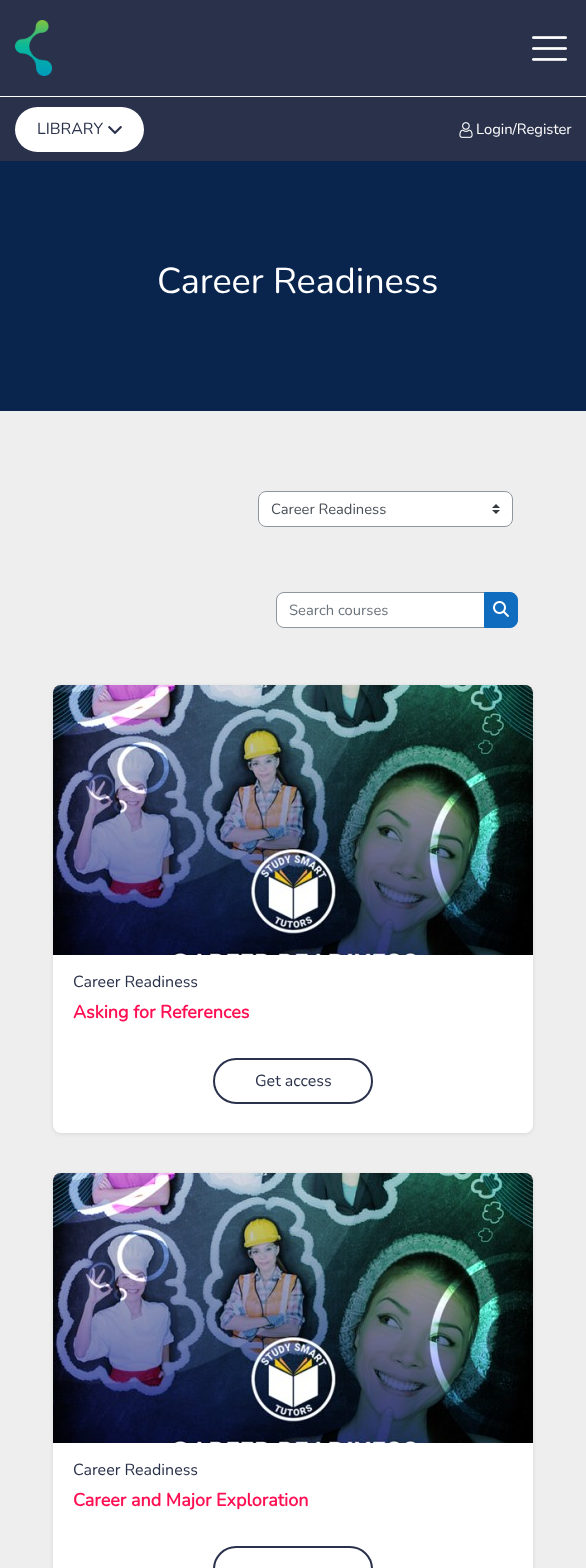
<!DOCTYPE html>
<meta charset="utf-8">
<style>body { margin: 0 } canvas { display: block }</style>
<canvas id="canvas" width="586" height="1568"></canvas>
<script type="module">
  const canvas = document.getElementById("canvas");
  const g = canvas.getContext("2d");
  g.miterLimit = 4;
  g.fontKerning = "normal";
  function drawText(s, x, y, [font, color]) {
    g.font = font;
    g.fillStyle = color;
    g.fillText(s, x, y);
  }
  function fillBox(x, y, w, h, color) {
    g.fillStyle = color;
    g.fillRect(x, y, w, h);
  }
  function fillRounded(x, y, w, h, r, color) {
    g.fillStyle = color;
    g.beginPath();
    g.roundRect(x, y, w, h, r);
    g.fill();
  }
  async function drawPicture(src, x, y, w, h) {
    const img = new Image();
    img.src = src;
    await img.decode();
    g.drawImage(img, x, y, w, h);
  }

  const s1 = ["16px Nunito", "#2A324B"];
  const s2 = ["14.75px Nunito", "#FFFFFF"];
  const s3 = ["36px Nunito", "#FFFFFF"];
  const s4 = ["14.75px Nunito", "#495057"];
  const s5 = ["14.75px Nunito", "#6A737B"];
  const s6 = ["bold 18px Nunito", "#FF1053"];

  fillBox(0, 0, 586, 1568, "#EEEEEE");
  fillBox(0, 0, 586, 96, "#2A324B");
  await drawPicture("pic1.png", 15, 20, 37, 56);
  await drawPicture("pic2.png", 532, 36, 35, 25);
  fillBox(0, 97, 586, 64, "#2A324B");
  fillBox(0, 96, 586, 1, "#FFFFFF");
  fillRounded(15, 107, 129, 45, 22.5, "#FFFFFF");
  drawText("LIBRARY", 37, 134, s1);
  await drawPicture("pic3.png", 108, 126, 14, 8);
  await drawPicture("pic4.png", 459, 122, 14, 16);
  drawText("Login/Register", 476, 134, s2);
  fillBox(0, 161, 586, 250, "#0A254D");
  drawText("Career Readiness", 157, 293, s3);
  fillRounded(258, 491, 255, 36, 8, "#FFFFFF");
  await drawPicture("pic5.png", 492, 504, 8, 10);
  g.beginPath();
  g.roundRect(258.5, 491.5, 254, 35, 7.5);
  g.strokeStyle = "#8F959E";
  g.stroke();
  drawText("Career Readiness", 271, 514, s4);
  g.fillStyle = "#FFFFFF";
  g.beginPath();
  g.roundRect(276.5, 592.5, 208, 35, [7.5, 0, 0, 7.5]);
  g.fill();
  g.stroke();
  drawText("Search courses", 289, 615, s5);
  g.fillStyle = "#0F6CBF";
  g.beginPath();
  g.roundRect(484.5, 592.5, 33, 35, [0, 7.5, 7.5, 0]);
  g.fill();
  g.strokeStyle = "#0F6CBF";
  g.stroke();
  await drawPicture("pic6.png", 493, 601, 16, 16);
  g.fillStyle = "rgba(0, 0, 0, 0.09)";
  g.filter = "blur(2px)";
  g.beginPath();
  g.roundRect(53, 686, 480, 448, 8);
  g.fill();
  g.filter = "none";
  fillRounded(53, 685, 480, 448, 8, "#FFFFFF");
  await drawPicture("pic7.png", 53, 685, 480, 270);
  drawText("Career Readiness", 73, 987, s1);
  drawText("Asking for References", 73, 1018, s6);
  g.beginPath();
  g.roundRect(214, 1059, 158, 44, 22);
  g.strokeStyle = "#2A324B";
  g.lineWidth = 2;
  g.stroke();
  drawText("Get access", 255, 1086, s1);
  g.fillStyle = "rgba(0, 0, 0, 0.09)";
  g.filter = "blur(2px)";
  g.beginPath();
  g.roundRect(53, 1174, 480, 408, 8);
  g.fill();
  g.filter = "none";
  fillRounded(53, 1173, 480, 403, 8, "#FFFFFF");
  await drawPicture("pic7.png", 53, 1173, 480, 270);
  drawText("Career Readiness", 73, 1475, s1);
  drawText("Career and Major Exploration", 73, 1506, s6);
  g.beginPath();
  g.roundRect(214, 1547, 158, 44, 22);
  g.stroke();
</script>
